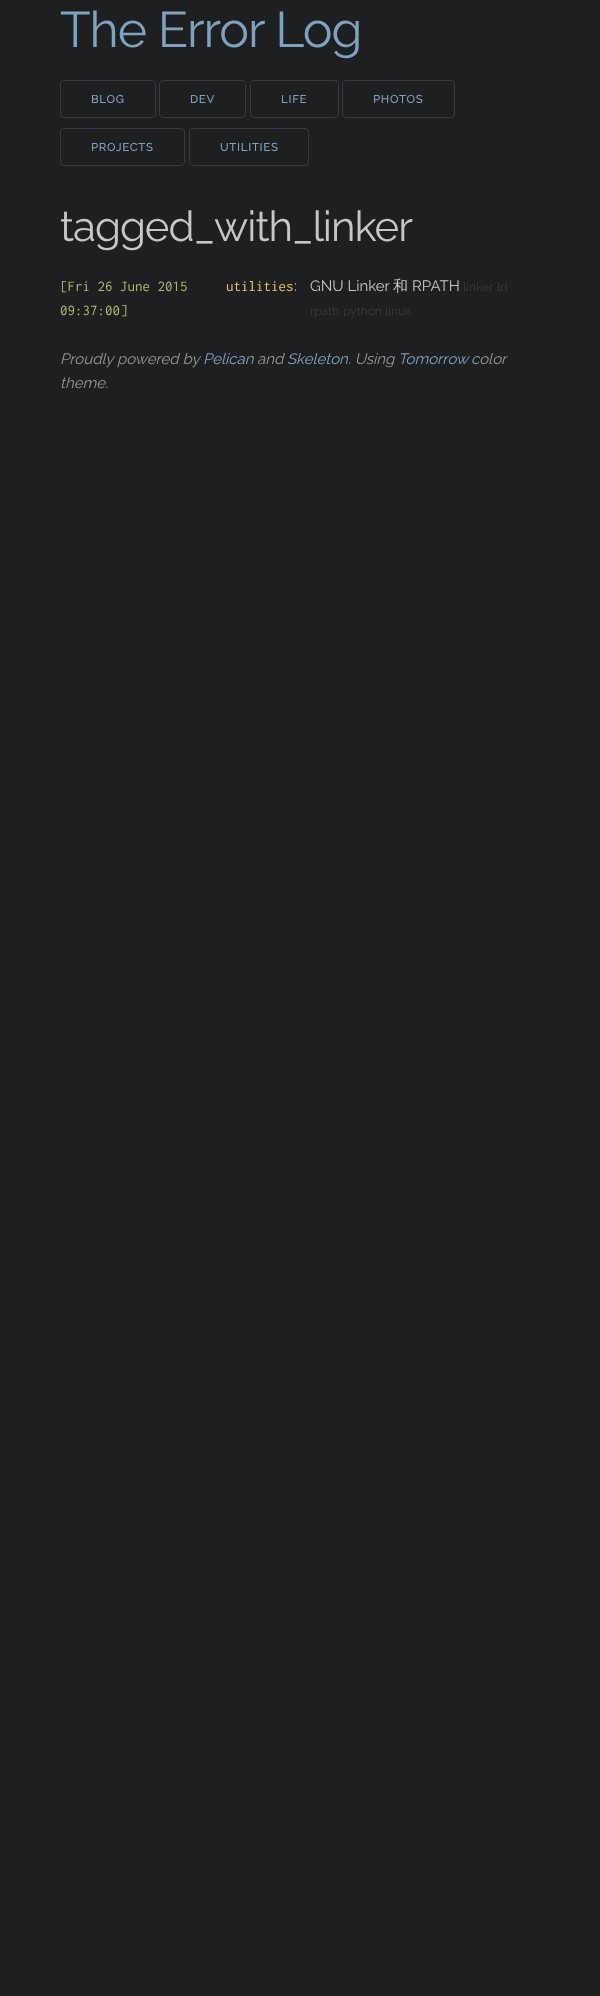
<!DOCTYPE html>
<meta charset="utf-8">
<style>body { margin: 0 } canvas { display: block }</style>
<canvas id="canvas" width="600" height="1996"></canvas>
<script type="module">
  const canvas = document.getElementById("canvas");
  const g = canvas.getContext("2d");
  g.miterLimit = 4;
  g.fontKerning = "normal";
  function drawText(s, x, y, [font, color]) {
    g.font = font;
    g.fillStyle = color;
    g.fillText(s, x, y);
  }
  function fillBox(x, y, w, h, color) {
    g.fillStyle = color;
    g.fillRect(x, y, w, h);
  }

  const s1 = ["100 50px Raleway", "#81A2BE"];
  const s2 = ["bold 11px Raleway", "#81A2BE"];
  const s3 = ["100 42px Raleway", "#C5C8C6"];
  const s4 = ["15px Inconsolata", "#B5BD68"];
  const s5 = ["15px Inconsolata", "#F0C674"];
  const s6 = ["100 15px Raleway", "#C5C8C6"];
  const s7 = ["500 15px WenQuanYi Zen Hei", "#C5C8C6"];
  const s8 = ["100 12px Raleway", "#373B41"];
  const s9 = ["italic 100 15px Raleway", "#969896"];
  const s10 = ["italic 100 15px Raleway", "#81A2BE"];

  fillBox(0, 0, 600, 1996, "#1D1F21");
  g.letterSpacing = "-1px";
  drawText("The Error Log", 60, 47, s1);
  g.beginPath();
  g.roundRect(60.5, 80.5, 95, 37, 3.5);
  g.strokeStyle = "#373B41";
  g.stroke();
  g.letterSpacing = "1px";
  drawText("BLOG", 91, 103, s2);
  g.beginPath();
  g.roundRect(159.5, 80.5, 86, 37, 3.5);
  g.stroke();
  drawText("DEV", 190, 103, s2);
  g.beginPath();
  g.roundRect(250.5, 80.5, 88, 37, 3.5);
  g.stroke();
  drawText("LIFE", 281, 103, s2);
  g.beginPath();
  g.roundRect(342.5, 80.5, 112, 37, 3.5);
  g.stroke();
  drawText("PHOTOS", 373, 103, s2);
  g.beginPath();
  g.roundRect(60.5, 128.5, 124, 37, 3.5);
  g.stroke();
  drawText("PROJECTS", 91, 151, s2);
  g.beginPath();
  g.roundRect(189.5, 128.5, 119, 37, 3.5);
  g.stroke();
  drawText("UTILITIES", 220, 151, s2);
  g.letterSpacing = "-1px";
  drawText("tagged_with_linker", 60, 241, s3);
  g.letterSpacing = "0px";
  drawText("[Fri 26 June 2015", 60, 291, s4);
  drawText("09:37:00]", 60, 315, s4);
  drawText("utilities", 226, 291, s5);
  drawText(":", 294, 291, s6);
  drawText("GNU Linker", 310, 291, s6);
  drawText("和", 393, 291, s7);
  drawText("RPATH", 412, 291, s6);
  drawText("linker", 463, 291, s8);
  drawText("ld", 497, 291, s8);
  drawText("rpath", 310, 315, s8);
  drawText("python", 343, 315, s8);
  drawText("linux", 385, 315, s8);
  drawText("Proudly powered by", 60, 364, s9);
  drawText("Pelican", 203, 364, s10);
  drawText("and", 257, 364, s9);
  drawText("Skeleton", 287, 364, s10);
  drawText(". Using", 348, 364, s9);
  drawText("Tomorrow", 398, 364, s10);
  drawText("color", 471, 364, s9);
  drawText("theme.", 60, 388, s9);
</script>
